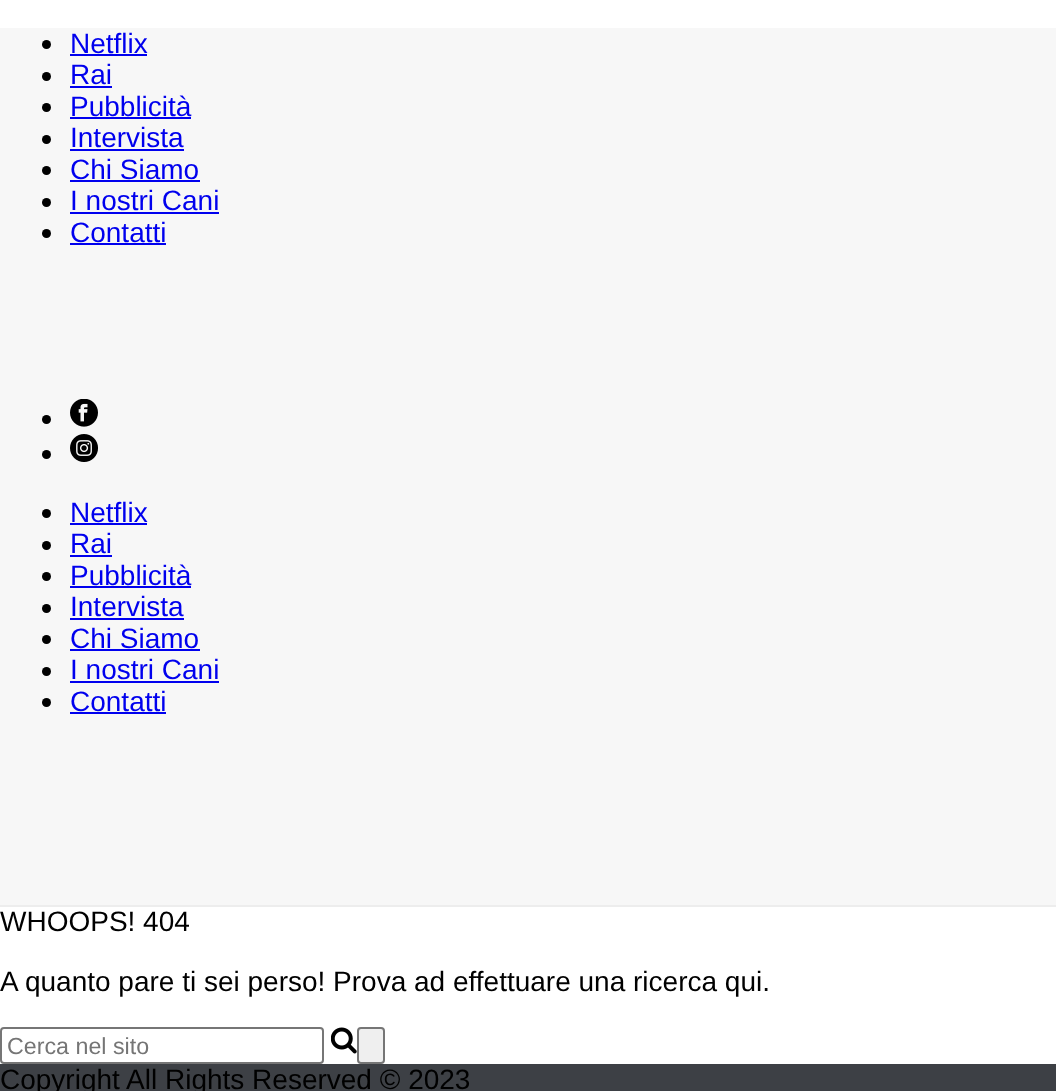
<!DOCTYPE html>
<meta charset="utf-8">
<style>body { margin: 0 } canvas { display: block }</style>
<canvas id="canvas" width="1056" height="1091"></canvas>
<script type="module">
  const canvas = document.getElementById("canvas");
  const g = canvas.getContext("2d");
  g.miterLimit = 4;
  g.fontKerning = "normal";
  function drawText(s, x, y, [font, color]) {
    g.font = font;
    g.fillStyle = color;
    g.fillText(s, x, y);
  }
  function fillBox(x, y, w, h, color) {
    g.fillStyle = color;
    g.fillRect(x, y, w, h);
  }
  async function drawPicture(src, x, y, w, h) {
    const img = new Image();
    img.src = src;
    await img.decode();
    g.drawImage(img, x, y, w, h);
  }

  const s1 = ["28px Liberation Sans", "#0000EE"];
  const s2 = ["28px Liberation Sans", "#000000"];
  const s3 = ["23.25px Liberation Sans", "#757575"];

  fillBox(0, 0, 1056, 1091, "#FFFFFF");
  fillBox(0, 28, 1056, 877, "#F7F7F7");
  fillBox(0, 905, 1056, 2, "#EDEDED");
  g.fillStyle = "#000000";
  g.beginPath();
  g.arc(46.5, 44.5, 4.5, 0, Math.PI * 2);
  g.fill();
  drawText("Netflix", 70, 53, s1);
  fillBox(70, 54, 77, 2, "#0000EE");
  g.fillStyle = "#000000";
  g.beginPath();
  g.arc(46.5, 76.5, 4.5, 0, Math.PI * 2);
  g.fill();
  drawText("Rai", 70, 84, s1);
  fillBox(70, 86, 42, 2, "#0000EE");
  g.fillStyle = "#000000";
  g.beginPath();
  g.arc(46.5, 107.5, 4.5, 0, Math.PI * 2);
  g.fill();
  drawText("Pubblicità", 70, 116, s1);
  fillBox(70, 117, 121, 2, "#0000EE");
  g.fillStyle = "#000000";
  g.beginPath();
  g.arc(46.5, 139.5, 4.5, 0, Math.PI * 2);
  g.fill();
  drawText("Intervista", 70, 147, s1);
  fillBox(70, 149, 114, 2, "#0000EE");
  g.fillStyle = "#000000";
  g.beginPath();
  g.arc(46.5, 170.5, 4.5, 0, Math.PI * 2);
  g.fill();
  drawText("Chi Siamo", 70, 179, s1);
  fillBox(70, 180, 130, 2, "#0000EE");
  g.fillStyle = "#000000";
  g.beginPath();
  g.arc(46.5, 202.5, 4.5, 0, Math.PI * 2);
  g.fill();
  drawText("I nostri Cani", 70, 210, s1);
  fillBox(70, 212, 149, 2, "#0000EE");
  g.fillStyle = "#000000";
  g.beginPath();
  g.arc(46.5, 233.5, 4.5, 0, Math.PI * 2);
  g.fill();
  drawText("Contatti", 70, 242, s1);
  fillBox(70, 243, 96, 2, "#0000EE");
  g.fillStyle = "#000000";
  g.beginPath();
  g.arc(46.5, 419.5, 4.5, 0, Math.PI * 2);
  g.fill();
  await drawPicture("pic1.png", 70, 399, 28, 28);
  g.beginPath();
  g.arc(46.5, 454.5, 4.5, 0, Math.PI * 2);
  g.fill();
  await drawPicture("pic2.png", 70, 434, 28, 28);
  g.beginPath();
  g.arc(46.5, 513.5, 4.5, 0, Math.PI * 2);
  g.fill();
  drawText("Netflix", 70, 522, s1);
  fillBox(70, 523, 77, 2, "#0000EE");
  g.fillStyle = "#000000";
  g.beginPath();
  g.arc(46.5, 545.5, 4.5, 0, Math.PI * 2);
  g.fill();
  drawText("Rai", 70, 553, s1);
  fillBox(70, 555, 42, 2, "#0000EE");
  g.fillStyle = "#000000";
  g.beginPath();
  g.arc(46.5, 576.5, 4.5, 0, Math.PI * 2);
  g.fill();
  drawText("Pubblicità", 70, 585, s1);
  fillBox(70, 586, 121, 2, "#0000EE");
  g.fillStyle = "#000000";
  g.beginPath();
  g.arc(46.5, 608.5, 4.5, 0, Math.PI * 2);
  g.fill();
  drawText("Intervista", 70, 616, s1);
  fillBox(70, 618, 114, 2, "#0000EE");
  g.fillStyle = "#000000";
  g.beginPath();
  g.arc(46.5, 639.5, 4.5, 0, Math.PI * 2);
  g.fill();
  drawText("Chi Siamo", 70, 648, s1);
  fillBox(70, 649, 130, 2, "#0000EE");
  g.fillStyle = "#000000";
  g.beginPath();
  g.arc(46.5, 671.5, 4.5, 0, Math.PI * 2);
  g.fill();
  drawText("I nostri Cani", 70, 679, s1);
  fillBox(70, 681, 149, 2, "#0000EE");
  g.fillStyle = "#000000";
  g.beginPath();
  g.arc(46.5, 702.5, 4.5, 0, Math.PI * 2);
  g.fill();
  drawText("Contatti", 70, 711, s1);
  fillBox(70, 712, 96, 2, "#0000EE");
  drawText("WHOOPS! 404", 0, 931, s2);
  drawText("A quanto pare ti sei perso! Prova ad effettuare una ricerca qui.", 0, 991, s2);
  g.beginPath();
  g.roundRect(1, 1028, 322, 35, 3);
  g.strokeStyle = "#767676";
  g.lineWidth = 2;
  g.stroke();
  drawText("Cerca nel sito", 7, 1054, s3);
  await drawPicture("pic3.png", 331, 1027, 26, 27);
  g.fillStyle = "#EFEFEF";
  g.beginPath();
  g.roundRect(358, 1028, 26, 35, 3);
  g.fill();
  g.stroke();
  fillBox(0, 1064, 1056, 27, "#3D4045");
  drawText("Copyright All Rights Reserved © 2023", 0, 1089, s2);
</script>
